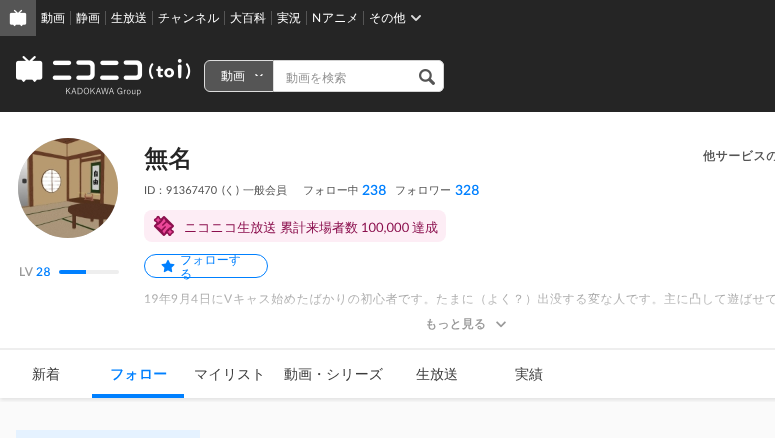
<!DOCTYPE html>
<meta charset="utf-8">
<style>body { margin: 0 } canvas { display: block }</style>
<canvas id="canvas" width="775" height="438"></canvas>
<script type="module">
  const canvas = document.getElementById("canvas");
  const g = canvas.getContext("2d");
  g.miterLimit = 4;
  g.fontKerning = "normal";
  function drawText(s, x, y, [font, color]) {
    g.font = font;
    g.fillStyle = color;
    g.fillText(s, x, y);
  }
  function fillBox(x, y, w, h, color) {
    g.fillStyle = color;
    g.fillRect(x, y, w, h);
  }
  function fillRounded(x, y, w, h, r, color) {
    g.fillStyle = color;
    g.beginPath();
    g.roundRect(x, y, w, h, r);
    g.fill();
  }
  async function drawPicture(src, x, y, w, h) {
    const img = new Image();
    img.src = src;
    await img.decode();
    g.drawImage(img, x, y, w, h);
  }
  let gradient;

  const s1 = ["500 12px WenQuanYi Zen Hei", "#FFFFFF"];
  const s2 = ["12px Lato", "#FFFFFF"];
  const s3 = ["500 12px WenQuanYi Zen Hei", "#929292"];
  const s4 = ["600 12px Lato", "#999999"];
  const s5 = ["600 12px Lato", "#0080FF"];
  const s6 = ["bold 24px WenQuanYi Zen Hei", "#252525"];
  const s7 = ["bold 12px WenQuanYi Zen Hei", "#555555"];
  const s8 = ["11px Lato", "#555555"];
  const s9 = ["500 11px WenQuanYi Zen Hei", "#555555"];
  const s10 = ["600 14px Lato", "#0080FF"];
  const s11 = ["500 13px WenQuanYi Zen Hei", "#8B0F4D"];
  const s12 = ["13px Lato", "#8B0F4D"];
  const s13 = ["500 12px WenQuanYi Zen Hei", "#0080FF"];
  const s14 = ["12px Lato", "#999999"];
  const s15 = ["500 12px WenQuanYi Zen Hei", "#999999"];
  const s16 = ["bold 12px WenQuanYi Zen Hei", "#999999"];
  const s17 = ["500 14px WenQuanYi Zen Hei", "#3B3B3B"];
  const s18 = ["bold 14px WenQuanYi Zen Hei", "#0080FF"];

  fillBox(0, 0, 775, 438, "#FAFAFA");
  fillBox(36, 0, 739, 36, "#252525");
  fillBox(0, 0, 36, 36, "#555555");
  await drawPicture("pic1.png", 9, 9, 18, 18);
  drawText("動画", 41, 22, s1);
  fillBox(70, 11, 1, 14, "#555555");
  drawText("静画", 76, 22, s1);
  fillBox(105, 11, 1, 14, "#555555");
  drawText("生放送", 111, 22, s1);
  fillBox(152, 11, 1, 14, "#555555");
  drawText("チャンネル", 158, 22, s1);
  fillBox(224, 11, 1, 14, "#555555");
  drawText("大百科", 230, 22, s1);
  fillBox(271, 11, 1, 14, "#555555");
  drawText("実況", 277, 22, s1);
  fillBox(306, 11, 1, 14, "#555555");
  drawText("N", 312, 22, s2);
  drawText("アニメ", 322, 22, s1);
  fillBox(363, 11, 1, 14, "#555555");
  drawText("その他", 369, 22, s1);
  await drawPicture("pic2.png", 411, 15, 10, 6);
  fillBox(0, 36, 775, 76, "#252525");
  await drawPicture("pic3.png", 16, 56, 175, 40);
  g.fillStyle = "#555555";
  g.beginPath();
  g.roundRect(204.5, 60.5, 69, 31, [5.5, 0, 0, 5.5]);
  g.fill();
  g.strokeStyle = "#DDDDDD";
  g.stroke();
  drawText("動画", 221, 80, s1);
  await drawPicture("pic4.png", 255, 74, 8, 2);
  g.beginPath();
  g.roundRect(274, 60, 170, 32, [0, 6, 6, 0]);
  g.fill();
  g.fillStyle = "#D3D3D3";
  g.beginPath();
  g.moveTo(274, 60);
  g.lineTo(438, 60);
  g.bezierCurveTo(441, 60, 444, 63, 444, 66);
  g.lineTo(444, 86);
  g.bezierCurveTo(444, 89, 441, 92, 438, 92);
  g.lineTo(274, 92);
  g.closePath();
  g.moveTo(274, 61);
  g.lineTo(438, 61);
  g.bezierCurveTo(441, 61, 443, 63, 443, 66);
  g.lineTo(443, 86);
  g.bezierCurveTo(443, 89, 441, 91, 438, 91);
  g.lineTo(274, 91);
  g.closePath();
  g.fill("evenodd");
  drawText("動画を検索", 286, 82, s3);
  await drawPicture("pic5.png", 419, 69, 16, 16);
  fillBox(0, 112, 775, 236, "#FFFFFF");
  g.fillStyle = "#CCCCCC";
  g.beginPath();
  g.arc(68, 188, 50, 0, Math.PI * 2);
  g.fill();
  await drawPicture("pic6.png", 18, 138, 100, 100);
  g.letterSpacing = "0.5px";
  drawText("LV", 19, 276, s4);
  drawText("28", 36, 276, s5);
  fillRounded(59, 270, 60, 4, 2, "#EEEEEE");
  g.fillStyle = "#0080FF";
  g.beginPath();
  g.roundRect(59, 270, 27, 4, [2, 0, 0, 2]);
  g.fill();
  g.letterSpacing = "0px";
  drawText("無名", 144, 167, s6);
  g.letterSpacing = "0.5px";
  drawText("他サービスの", 703, 160, s7);
  g.letterSpacing = "0px";
  drawText("ID", 144, 194, s8);
  drawText("：", 155, 194, s9);
  drawText("91367470", 166, 194, s8);
  drawText("(", 222, 194, s8);
  drawText("く", 224, 194, s9);
  drawText(")", 236, 194, s8);
  drawText("一般会員", 243, 194, s9);
  drawText("フォロー中", 303, 194, s9);
  drawText("238", 362, 195, s10);
  drawText("フォロワー", 395, 194, s9);
  drawText("328", 455, 195, s10);
  fillRounded(144, 210, 302, 32, 8, "#FDEDF5");
  await drawPicture("pic7.png", 153, 215, 21, 21);
  drawText("ニコニコ生放送 累計来場者数", 184, 232, s11);
  drawText("100,000", 361, 232, s12);
  drawText("達成", 412, 232, s11);
  g.beginPath();
  g.roundRect(144.5, 254.5, 123, 23, 11.5);
  g.strokeStyle = "#0080FF";
  g.stroke();
  await drawPicture("pic8.png", 161, 259, 14, 14);
  drawText("フォローす", 180, 264, s13);
  drawText("る", 180, 278, s13);
  g.letterSpacing = "0.5px";
  drawText("19", 144, 303, s14);
  drawText("年", 159, 303, s15);
  drawText("9", 171, 303, s14);
  drawText("月", 179, 303, s15);
  drawText("4", 191, 303, s14);
  drawText("日に", 199, 303, s15);
  drawText("V", 224, 303, s14);
  drawText("キャス始めたばかりの初心者です。たまに（よく？）出没する変な人です。主に凸して遊ばせて", 233, 303, s15);
  gradient = g.createLinearGradient(468, 290, 468, 326);
  gradient.addColorStop(0, "rgba(255, 255, 255, 0)");
  gradient.addColorStop(1, "#FFFFFF");
  g.fillStyle = gradient;
  g.fillRect(145, 293, 630, 13);
  g.letterSpacing = "0px";
  drawText("もっと見る", 425, 328, s16);
  await drawPicture("pic9.png", 496, 321, 10, 7);
  fillBox(0, 348, 775, 2, "#EEEEEE");
  fillBox(0, 350, 775, 48, "#FFFFFF");
  g.save();
  g.beginPath();
  g.rect(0, 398, 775, 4);
  g.clip();
  g.fillStyle = "rgba(0, 0, 0, 0.1)";
  g.filter = "blur(2px)";
  g.beginPath();
  g.rect(0, 352, 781, 48);
  g.fill();
  g.filter = "none";
  g.restore();
  drawText("新着", 32, 379, s17);
  drawText("フォロー", 110, 379, s18);
  drawText("マイリスト", 194, 379, s17);
  drawText("動画・シリーズ", 284, 379, s17);
  drawText("生放送", 416, 379, s17);
  drawText("実績", 515, 379, s17);
  fillBox(92, 394, 92, 4, "#0080FF");
  fillBox(16, 430, 184, 8, "#E5F2FF");
</script>
